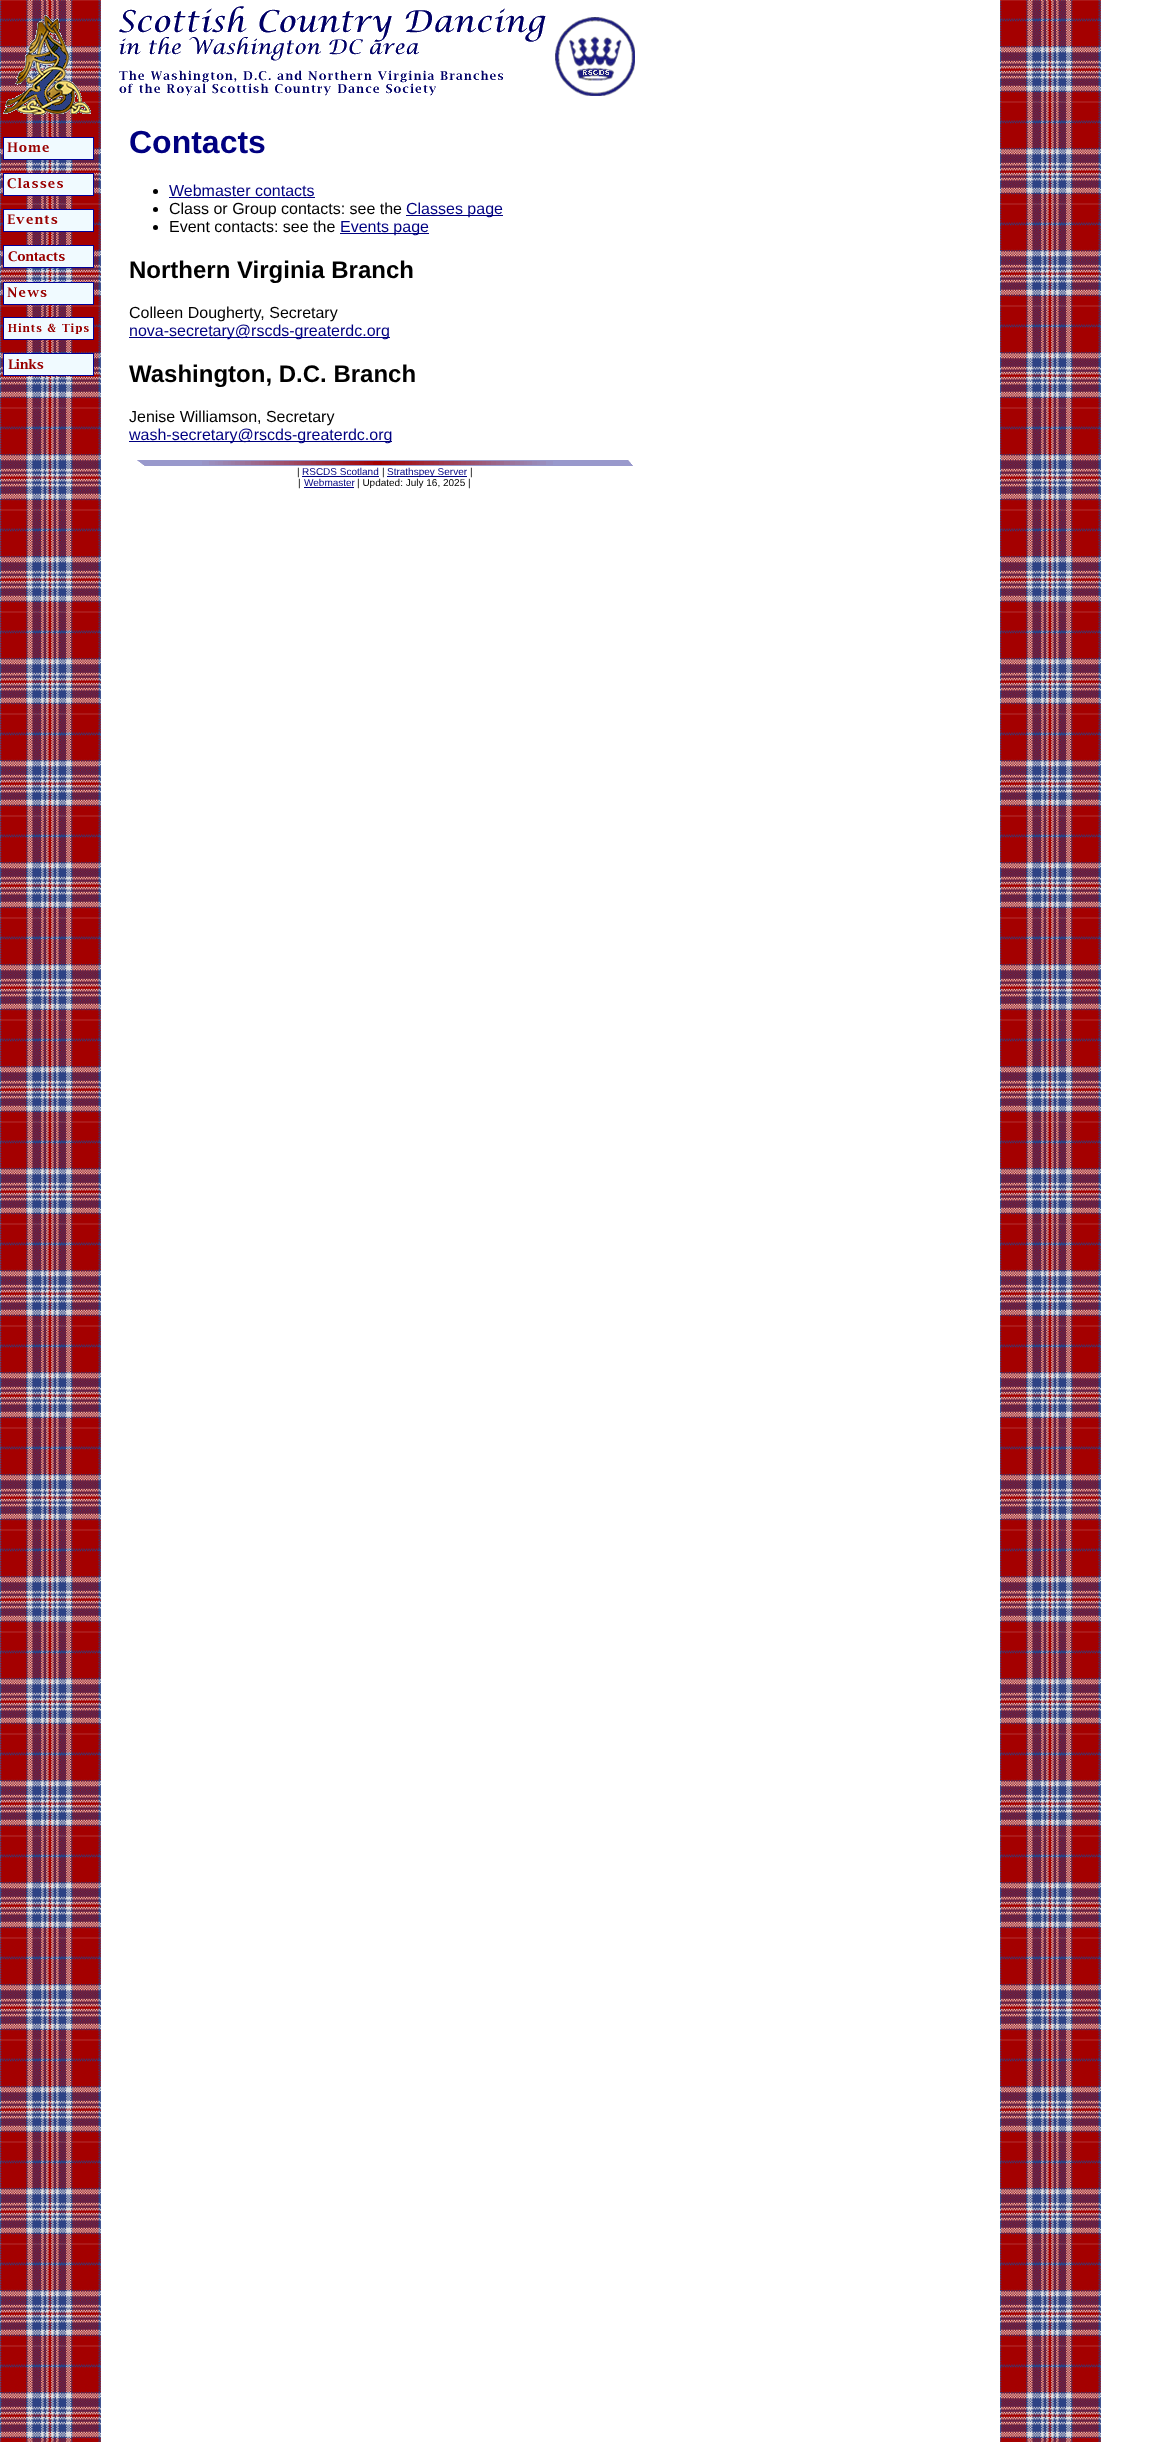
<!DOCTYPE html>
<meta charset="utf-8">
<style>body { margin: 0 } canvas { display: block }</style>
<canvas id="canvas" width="1169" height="2442"></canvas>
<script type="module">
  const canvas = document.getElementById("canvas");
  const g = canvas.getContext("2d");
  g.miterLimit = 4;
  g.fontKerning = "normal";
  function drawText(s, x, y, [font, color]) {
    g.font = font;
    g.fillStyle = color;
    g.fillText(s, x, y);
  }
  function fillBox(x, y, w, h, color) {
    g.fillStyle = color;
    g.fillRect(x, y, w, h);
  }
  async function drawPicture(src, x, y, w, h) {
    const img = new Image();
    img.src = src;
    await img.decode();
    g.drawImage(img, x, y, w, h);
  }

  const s1 = ["bold 32px Liberation Sans", "#000080"];
  const s2 = ["16px Liberation Sans", "#000080"];
  const s3 = ["16px Liberation Sans", "#000000"];
  const s4 = ["bold 24px Liberation Sans", "#000000"];
  const s5 = ["10px Liberation Sans", "#000000"];
  const s6 = ["10px Liberation Sans", "#000080"];

  fillBox(0, 0, 1169, 2442, "#FFFFFF");
  await drawPicture("pic1.png", 0, 0, 1101, 2442);
  await drawPicture("pic2.png", 3, 15, 88, 100);
  await drawPicture("pic3.png", 3, 137, 91, 23);
  await drawPicture("pic4.png", 3, 173, 91, 23);
  await drawPicture("pic5.png", 3, 209, 91, 23);
  await drawPicture("pic6.png", 3, 245, 91, 23);
  await drawPicture("pic7.png", 3, 282, 91, 23);
  await drawPicture("pic8.png", 3, 317, 91, 23);
  await drawPicture("pic9.png", 3, 353, 91, 23);
  await drawPicture("pic10.png", 119, 6, 516, 90);
  drawText("Contacts", 129, 153, s1);
  g.fillStyle = "#000000";
  g.beginPath();
  g.arc(155.5, 191.5, 2.5, 0, Math.PI * 2);
  g.fill();
  drawText("Webmaster contacts", 169, 196, s2);
  fillBox(169, 197, 146, 1, "#000080");
  g.fillStyle = "#000000";
  g.beginPath();
  g.arc(155.5, 209.5, 2.5, 0, Math.PI * 2);
  g.fill();
  drawText("Class or Group contacts: see the", 169, 214, s3);
  fillBox(406, 215, 97, 1, "#000080");
  drawText("Classes page", 406, 214, s2);
  g.fillStyle = "#000000";
  g.beginPath();
  g.arc(155.5, 227.5, 2.5, 0, Math.PI * 2);
  g.fill();
  drawText("Event contacts: see the", 169, 232, s3);
  fillBox(340, 233, 89, 1, "#000080");
  drawText("Events page", 340, 232, s2);
  drawText("Northern Virginia Branch", 129, 278, s4);
  drawText("Colleen Dougherty, Secretary", 129, 318, s3);
  fillBox(129, 337, 261, 1, "#000080");
  drawText("nova-secretary@rscds-greaterdc.org", 129, 336, s2);
  drawText("Washington, D.C. Branch", 129, 382, s4);
  drawText("Jenise Williamson, Secretary", 129, 422, s3);
  fillBox(129, 441, 263, 1, "#000080");
  drawText("wash-secretary@rscds-greaterdc.org", 129, 440, s2);
  await drawPicture("pic11.png", 137, 460, 496, 6);
  drawText("|", 297, 475, s5);
  drawText("RSCDS Scotland", 302, 475, s6);
  fillBox(302, 476, 77, 1, "#000080");
  drawText("|", 382, 475, s5);
  fillBox(387, 476, 80, 1, "#000080");
  drawText("Strathspey Server", 387, 475, s6);
  drawText("|", 470, 475, s5);
  drawText("|", 298, 486, s5);
  drawText("Webmaster", 304, 486, s6);
  fillBox(304, 487, 50, 1, "#000080");
  drawText("| Updated: July 16, 2025 |", 357, 486, s5);
</script>
